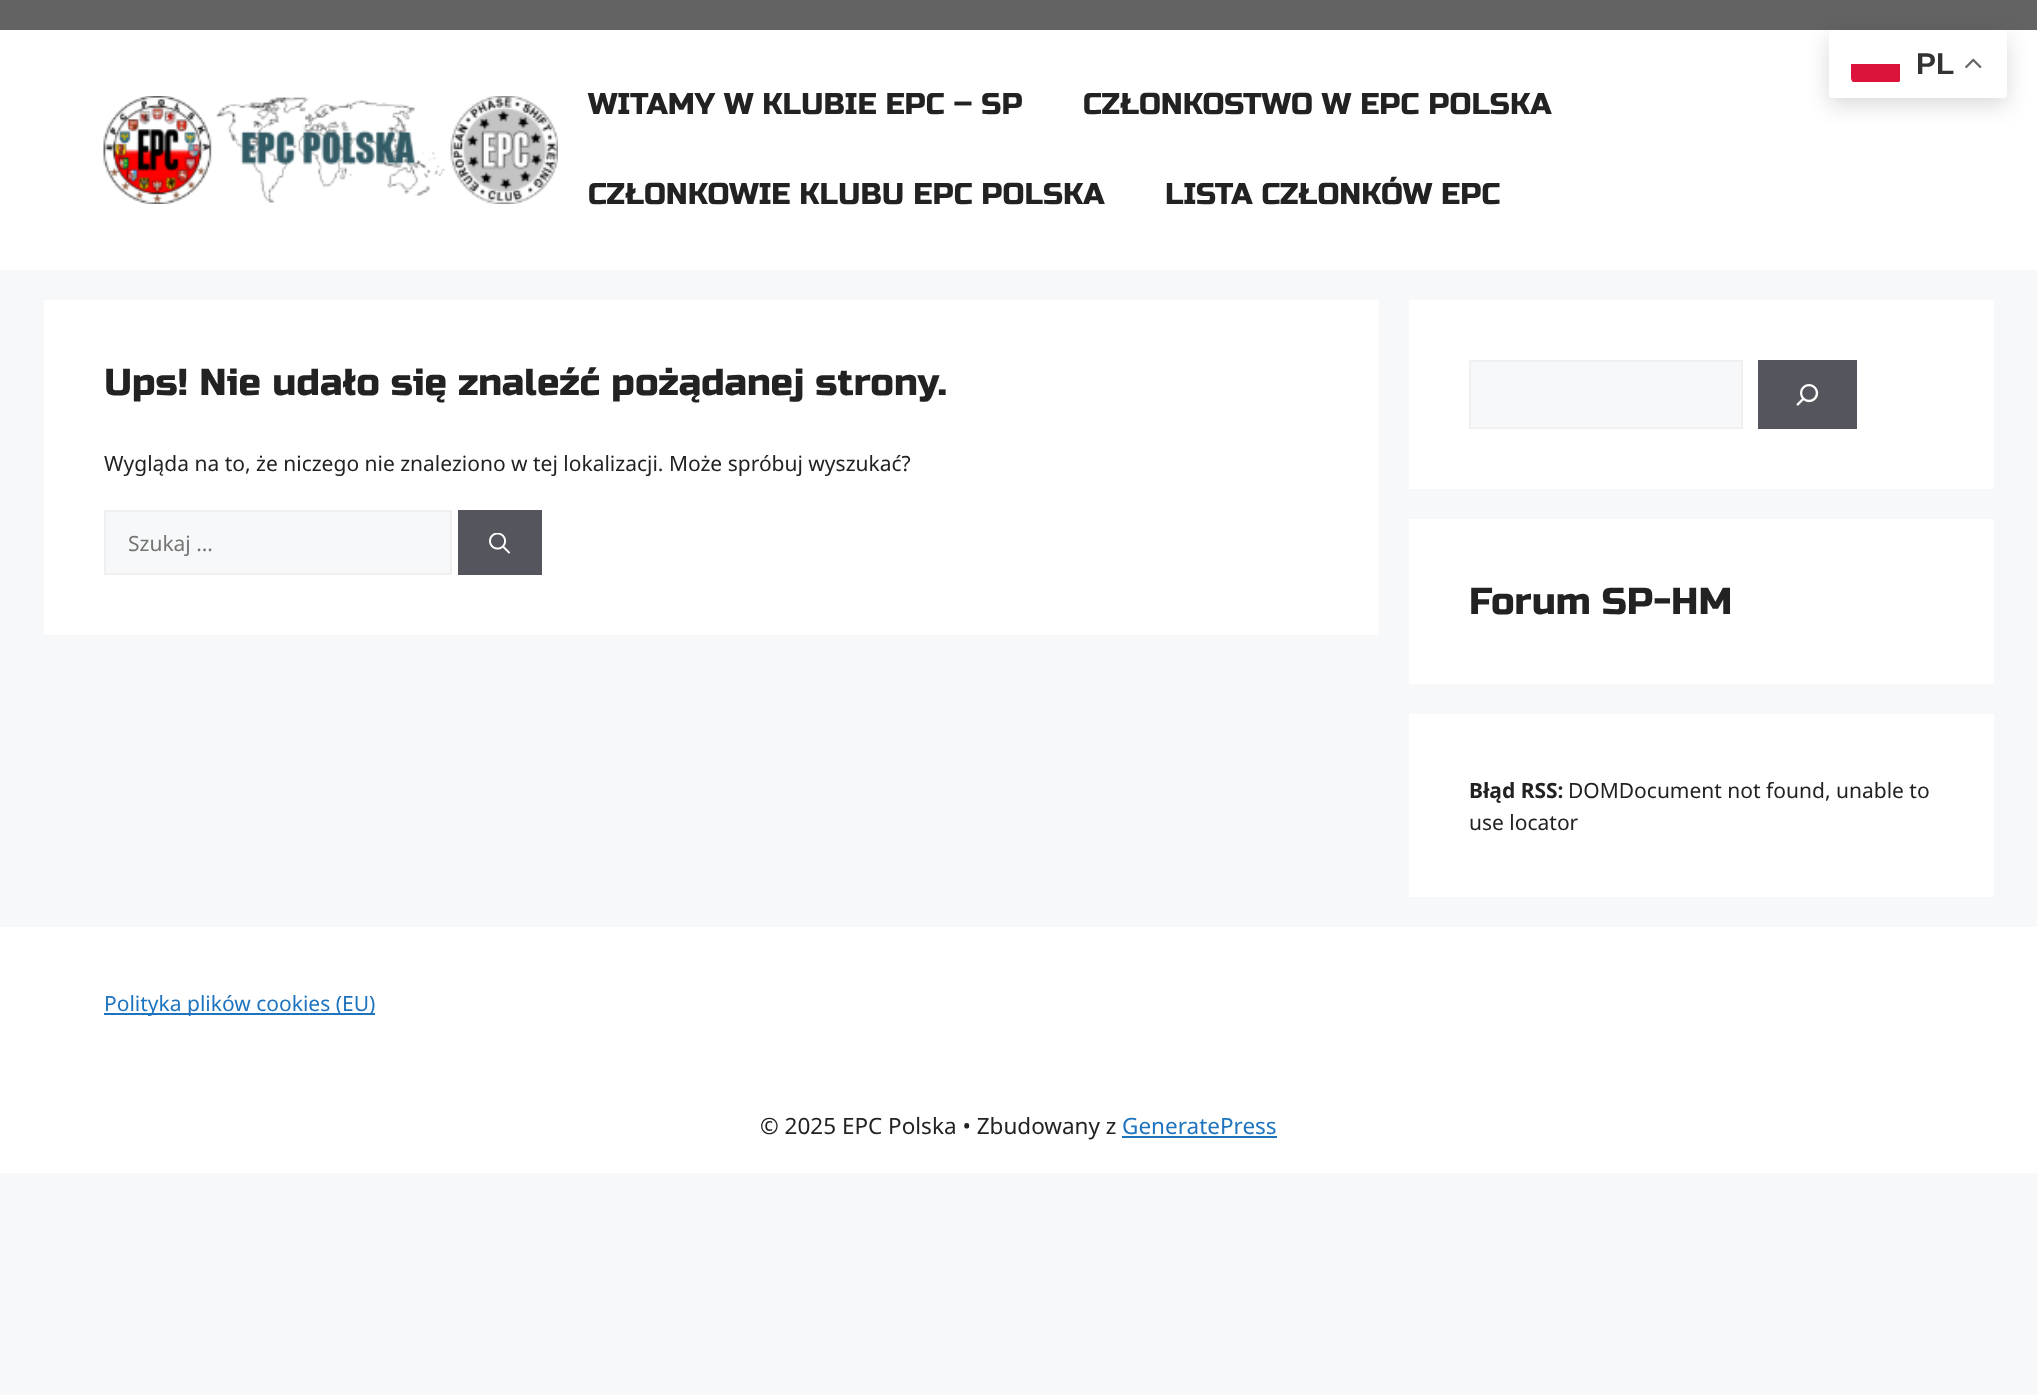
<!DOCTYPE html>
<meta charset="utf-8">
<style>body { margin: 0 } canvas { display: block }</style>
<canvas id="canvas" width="2037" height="1395"></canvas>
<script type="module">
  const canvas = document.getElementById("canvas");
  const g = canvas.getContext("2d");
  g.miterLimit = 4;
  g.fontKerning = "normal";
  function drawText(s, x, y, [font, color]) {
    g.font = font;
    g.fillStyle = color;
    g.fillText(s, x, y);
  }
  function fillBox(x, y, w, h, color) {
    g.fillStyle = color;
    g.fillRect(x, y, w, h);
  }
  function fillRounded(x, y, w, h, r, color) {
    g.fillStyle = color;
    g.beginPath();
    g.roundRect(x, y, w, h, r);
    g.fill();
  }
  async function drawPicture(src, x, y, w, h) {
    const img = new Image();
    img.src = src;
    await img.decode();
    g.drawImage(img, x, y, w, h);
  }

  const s1 = ["bold 30px Liberation Sans", "#333333"];
  const s2 = ["30px Russo One", "#222222"];
  const s3 = ["37.5px Russo One", "#222222"];
  const s4 = ["21px Noto Sans", "#222222"];
  const s5 = ["21px Noto Sans", "#757575"];
  const s6 = ["bold 21px Noto Sans", "#222222"];
  const s7 = ["21px Noto Sans", "#1E73BE"];
  const s8 = ["22.5px Noto Sans", "#222222"];
  const s9 = ["22.5px Noto Sans", "#1E73BE"];

  fillBox(0, 0, 2037, 1395, "#F7F8F9");
  fillBox(0, 0, 2037, 30, "#636363");
  fillBox(0, 30, 2037, 240, "#FFFFFF");
  g.fillStyle = "rgba(0, 0, 0, 0.15)";
  g.filter = "blur(11px)";
  g.beginPath();
  g.roundRect(1829, 38, 178, 67, 3);
  g.fill();
  g.filter = "none";
  fillRounded(1829, 30, 178, 68, 3, "#FFFFFF");
  g.save();
  g.beginPath();
  g.roundRect(1851, 45, 50, 38, 5);
  g.clip();
  fillBox(1851, 64, 49, 18, "#DC143C");
  g.restore();
  drawText("PL", 1916, 74, s1);
  await drawPicture("pic1.png", 1965, 58, 17, 11);
  await drawPicture("pic2.png", 103, 96, 455, 108);
  drawText("WITAMY W KLUBIE EPC – SP", 588, 114, s2);
  drawText("CZŁONKOSTWO W EPC POLSKA", 1083, 114, s2);
  drawText("CZŁONKOWIE KLUBU EPC POLSKA", 588, 204, s2);
  drawText("LISTA CZŁONKÓW EPC", 1165, 204, s2);
  fillBox(44, 300, 1335, 335, "#FFFFFF");
  drawText("Ups! Nie udało się znaleźć pożądanej strony.", 104, 395, s3);
  drawText("Wygląda na to, że niczego nie znaleziono w tej lokalizacji. Może spróbuj wyszukać?", 104, 471, s4);
  g.fillStyle = "#F7F8F9";
  g.beginPath();
  g.rect(105, 511, 346, 63);
  g.fill();
  g.strokeStyle = "#F0F0F0";
  g.lineWidth = 2;
  g.stroke();
  drawText("Szukaj …", 128, 551, s5);
  fillBox(458, 510, 84, 65, "#55555E");
  await drawPicture("pic3.png", 489, 533, 21, 21);
  fillBox(1409, 300, 585, 189, "#FFFFFF");
  g.fillStyle = "#F7F8F9";
  g.beginPath();
  g.rect(1470, 361, 272, 67);
  g.fill();
  g.stroke();
  fillBox(1758, 360, 99, 69, "#55555E");
  await drawPicture("pic4.png", 1796, 384, 23, 22);
  fillBox(1409, 519, 585, 165, "#FFFFFF");
  drawText("Forum SP-HM", 1469, 614, s3);
  fillBox(1409, 714, 585, 183, "#FFFFFF");
  drawText("Błąd RSS:", 1469, 798, s6);
  drawText("DOMDocument not found, unable to", 1568, 798, s4);
  drawText("use locator", 1469, 830, s4);
  fillBox(0, 927, 2037, 246, "#FFFFFF");
  fillBox(104, 1013, 271, 2, "#1E73BE");
  drawText("Polityka plików cookies (EU)", 104, 1011, s7);
  drawText("© 2025 EPC Polska • Zbudowany z", 760, 1134, s8);
  drawText("GeneratePress", 1122, 1134, s9);
  fillBox(1122, 1136, 155, 2, "#1E73BE");
</script>
